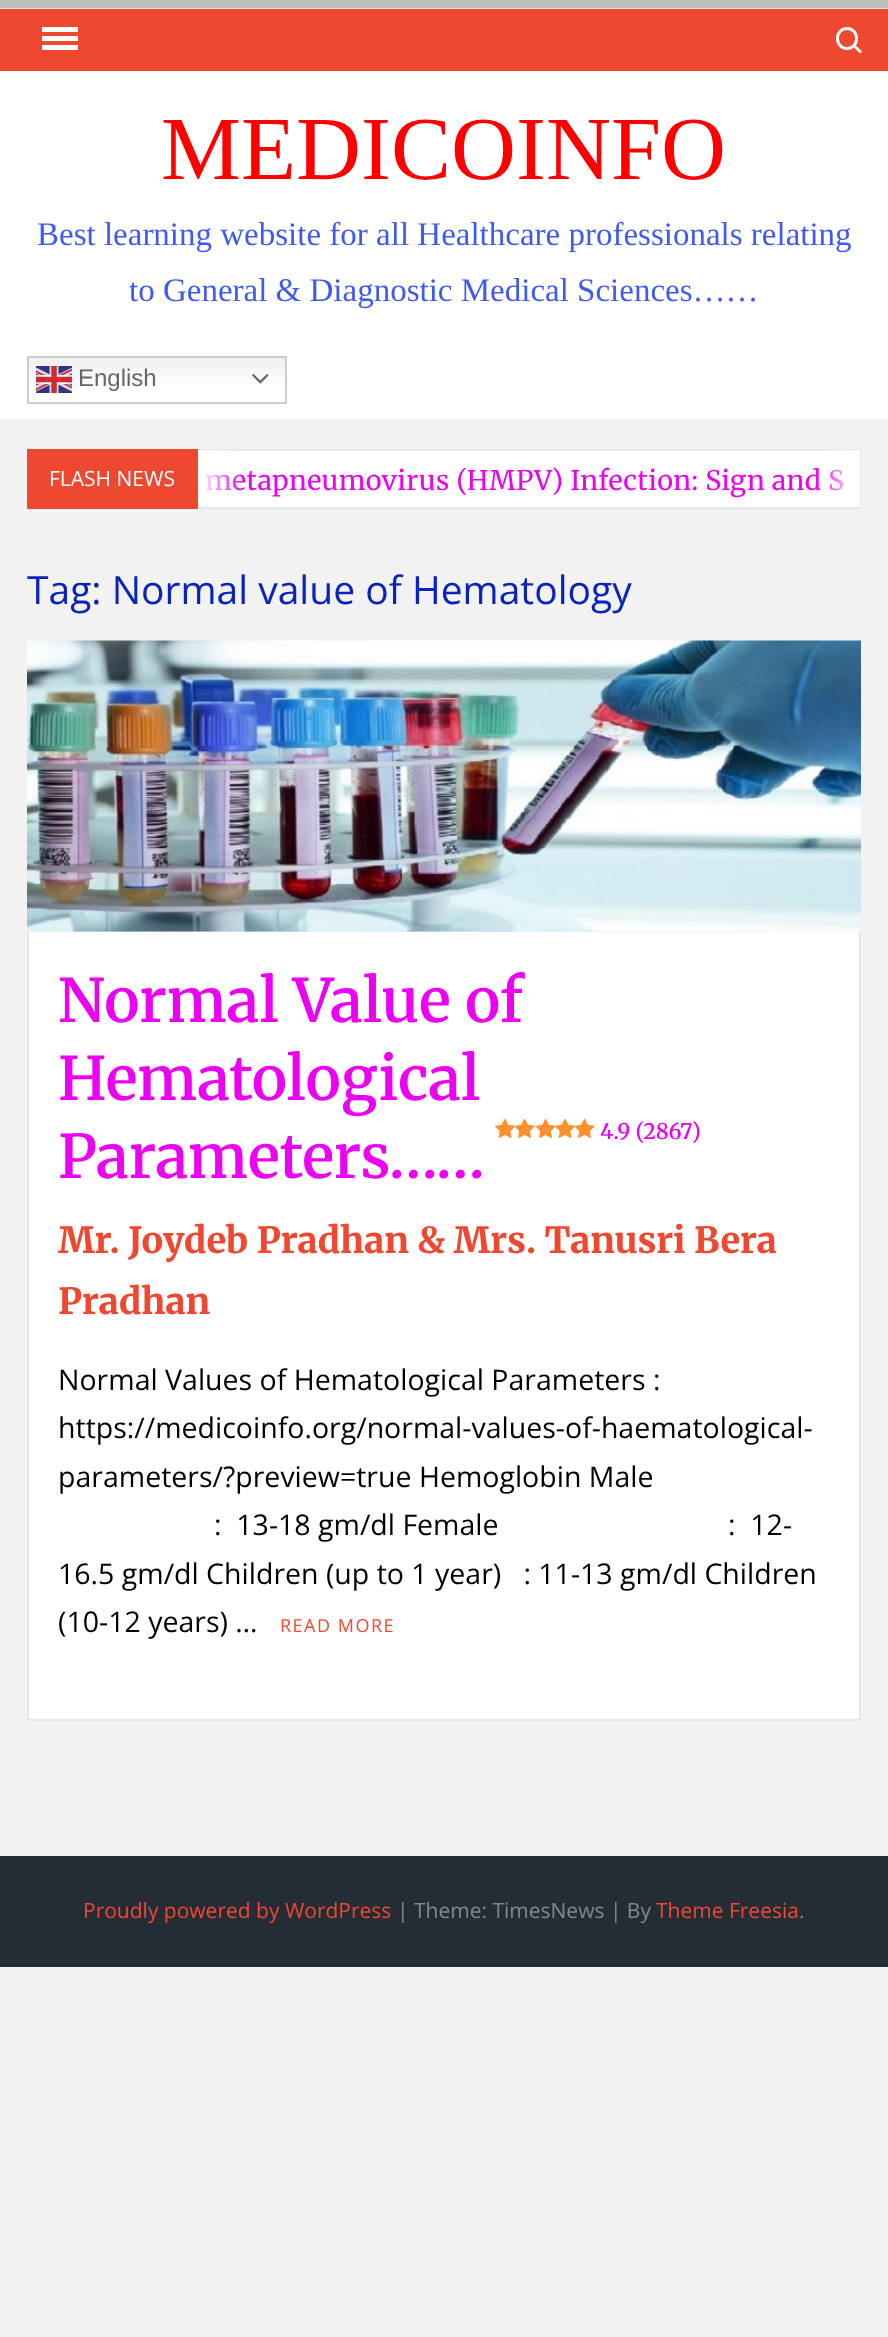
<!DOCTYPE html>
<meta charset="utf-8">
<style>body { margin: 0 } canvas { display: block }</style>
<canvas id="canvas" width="888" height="2337"></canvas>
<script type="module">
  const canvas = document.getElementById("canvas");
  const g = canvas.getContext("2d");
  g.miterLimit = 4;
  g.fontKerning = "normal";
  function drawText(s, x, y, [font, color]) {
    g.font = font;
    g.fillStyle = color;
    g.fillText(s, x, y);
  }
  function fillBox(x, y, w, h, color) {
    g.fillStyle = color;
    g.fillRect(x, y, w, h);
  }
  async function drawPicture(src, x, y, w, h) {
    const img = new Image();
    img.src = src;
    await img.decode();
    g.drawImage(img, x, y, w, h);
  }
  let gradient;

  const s1 = ["90px Liberation Serif", "#FF0000"];
  const s2 = ["33px Liberation Serif", "#3F59F5"];
  const s3 = ["24px Liberation Sans", "#666666"];
  const s4 = ["27px Merriweather", "#EC02F2"];
  const s5 = ["21px Open Sans", "#FFFFFF"];
  const s6 = ["39px Open Sans", "#0923BD"];
  const s7 = ["600 60px Merriweather", "#EC02F2"];
  const s8 = ["600 21.5px Merriweather", "#EC02F2"];
  const s9 = ["800 36px Merriweather", "#EE4930"];
  const s10 = ["28.5px Open Sans", "#000000"];
  const s11 = ["18px Open Sans", "#EE4930"];
  const s12 = ["21px Open Sans", "#EE4930"];
  const s13 = ["21px Open Sans", "#848790"];

  fillBox(0, 0, 888, 2337, "#F2F2F2");
  fillBox(0, 0, 888, 8, "#BDBDBD");
  fillBox(0, 8, 888, 1, "#E4E4E4");
  fillBox(0, 9, 888, 62, "#EE4930");
  fillBox(42, 36, 36, 5, "#FFFFFF");
  fillBox(42, 27, 36, 5, "#FFFFFF");
  fillBox(42, 45, 36, 5, "#FFFFFF");
  g.beginPath();
  g.roundRect(837.5, 28.5, 19, 20, 9.5);
  g.strokeStyle = "#FFFFFF";
  g.lineWidth = 3;
  g.stroke();
  g.beginPath();
  g.moveTo(856, 45.5);
  g.lineTo(862, 51.5);
  g.lineTo(860, 53.5);
  g.lineTo(854, 47.5);
  g.closePath();
  g.fill();
  fillBox(0, 71, 888, 348, "#FFFFFF");
  drawText("MEDICOINFO", 161, 179, s1);
  drawText("Best learning website for all Healthcare professionals relating", 37, 245, s2);
  drawText("to General & Diagnostic Medical Sciences……", 129, 301, s2);
  gradient = g.createLinearGradient(157, 356, 157, 404);
  gradient.addColorStop(0, "#EFEFEF");
  gradient.addColorStop(0.7, "#FFFFFF");
  g.fillStyle = gradient;
  g.fillRect(29, 358, 256, 26);
  g.strokeStyle = "#CCCCCC";
  g.lineWidth = 2;
  g.strokeRect(28, 357, 258, 46);
  await drawPicture("pic1.png", 36, 366, 36, 27);
  drawText("English", 78, 386, s3);
  await drawPicture("pic2.png", 252, 374, 17, 10);
  fillBox(198, 451, 661, 56, "#FFFFFF");
  g.strokeStyle = "#E7E7E7";
  g.strokeRect(28, 450, 832, 58);
  g.letterSpacing = "0.3px";
  drawText("metapneumovirus (HMPV) Infection: Sign and S", 205, 490, s4);
  gradient = g.createLinearGradient(815, 479, 860, 479);
  gradient.addColorStop(0, "rgba(255, 255, 255, 0)");
  gradient.addColorStop(1, "#FFFFFF");
  g.fillStyle = gradient;
  g.fillRect(816, 450, 44, 57);
  fillBox(27, 449, 171, 60, "#EE4930");
  g.letterSpacing = "0px";
  drawText("FLASH NEWS", 49, 486, s5);
  gradient = g.createLinearGradient(198, 479, 243, 479);
  gradient.addColorStop(0, "#FFFFFF");
  gradient.addColorStop(1, "rgba(255, 255, 255, 0)");
  g.fillStyle = gradient;
  g.fillRect(198, 450, 44, 41);
  drawText("Tag: Normal value of Hematology", 27, 604, s6);
  g.fillStyle = "#FFFFFF";
  g.beginPath();
  g.rect(28, 931, 832, 789);
  g.fill();
  g.strokeStyle = "#E6E6E6";
  g.stroke();
  await drawPicture("pic3.png", 27, 640, 834, 292);
  drawText("Normal Value of", 58, 1022, s7);
  drawText("Hematological", 58, 1100, s7);
  drawText("Parameters……", 58, 1178, s7);
  await drawPicture("pic4.png", 495, 1118, 20, 20);
  await drawPicture("pic5.png", 514, 1118, 21, 20);
  await drawPicture("pic6.png", 535, 1118, 21, 20);
  await drawPicture("pic7.png", 555, 1118, 20, 20);
  await drawPicture("pic5.png", 574, 1118, 21, 20);
  drawText("4.9 (2867)", 600, 1139, s8);
  drawText("Mr. Joydeb Pradhan & Mrs. Tanusri Bera", 58, 1253, s9);
  drawText("Pradhan", 58, 1314, s9);
  drawText("Normal Values of Hematological Parameters :", 58, 1390, s10);
  drawText("https://medicoinfo.org/normal-values-of-haematological-", 58, 1438, s10);
  drawText("parameters/?preview=true Hemoglobin Male", 58, 1487, s10);
  drawText(":  13-18 gm/dl Female                               :  12-", 214, 1535, s10);
  drawText("16.5 gm/dl Children (up to 1 year)   : 11-13 gm/dl Children", 58, 1584, s10);
  drawText("(10-12 years) …", 58, 1632, s10);
  g.letterSpacing = "1.5px";
  drawText("READ MORE", 280, 1632, s11);
  fillBox(0, 1856, 888, 111, "#242C35");
  g.letterSpacing = "0px";
  drawText("Proudly powered by WordPress", 83, 1918, s12);
  drawText("| Theme: TimesNews | By", 397, 1918, s13);
  drawText("Theme Freesia", 656, 1918, s12);
  drawText(".", 799, 1918, s13);
</script>
